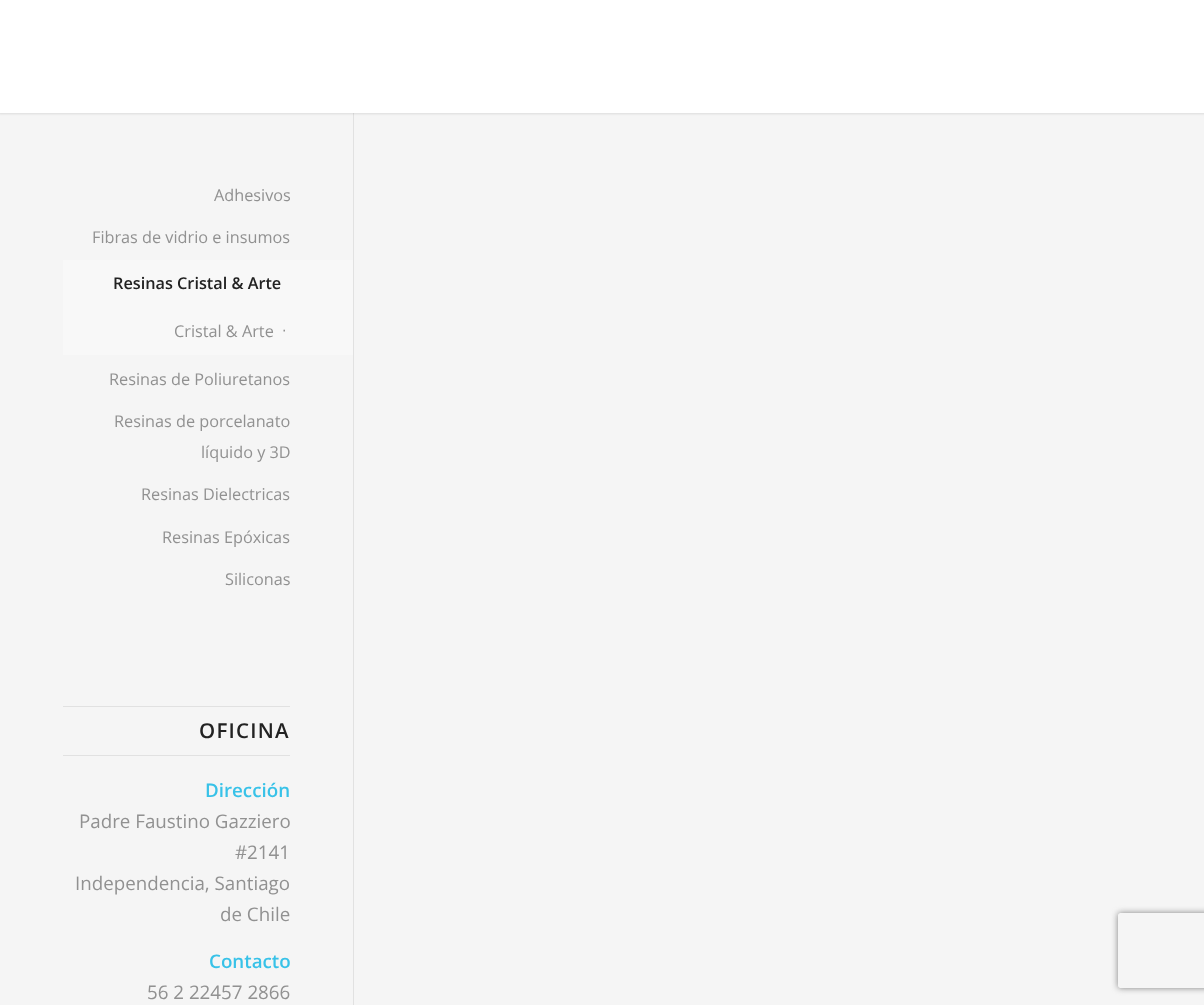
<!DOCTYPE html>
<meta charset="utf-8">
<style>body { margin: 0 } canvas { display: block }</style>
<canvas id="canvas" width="1204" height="1005"></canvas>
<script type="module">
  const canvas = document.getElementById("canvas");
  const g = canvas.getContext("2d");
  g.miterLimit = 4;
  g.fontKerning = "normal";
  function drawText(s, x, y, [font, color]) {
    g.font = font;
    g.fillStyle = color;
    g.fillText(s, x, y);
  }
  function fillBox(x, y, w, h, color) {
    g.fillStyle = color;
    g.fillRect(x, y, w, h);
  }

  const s1 = ["16.25px Open Sans", "#919191"];
  const s2 = ["600 16.25px Open Sans", "#222222"];
  const s3 = ["16.25px Liberation Sans", "#919191"];
  const s4 = ["600 20.5px Open Sans", "#222222"];
  const s5 = ["600 18.75px Open Sans", "#38C2E8"];
  const s6 = ["18.75px Open Sans", "#919191"];

  fillBox(0, 0, 1204, 1005, "#F5F5F5");
  fillBox(353, 113, 1, 892, "#E1E1E1");
  g.fillStyle = "rgba(0, 0, 0, 0.1)";
  g.filter = "blur(1px)";
  g.beginPath();
  g.rect(-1, -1, 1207, 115);
  g.fill();
  g.filter = "none";
  fillBox(0, 0, 1204, 113, "#FFFFFF");
  drawText("Adhesivos", 214, 201, s1);
  drawText("Fibras de vidrio e insumos", 92, 243, s1);
  fillBox(63, 260, 290, 95, "#F8F8F8");
  drawText("Resinas Cristal & Arte", 113, 289, s2);
  drawText("Cristal & Arte", 174, 337, s1);
  drawText("∙", 282, 335, s3);
  drawText("Resinas de Poliuretanos", 109, 385, s1);
  drawText("Resinas de porcelanato", 114, 427, s1);
  drawText("líquido y 3D", 201, 458, s1);
  drawText("Resinas Dielectricas", 141, 500, s1);
  drawText("Resinas Epóxicas", 162, 543, s1);
  drawText("Siliconas", 225, 585, s1);
  fillBox(63, 706, 227, 1, "#E1E1E1");
  fillBox(63, 755, 227, 1, "#E1E1E1");
  g.letterSpacing = "1.25px";
  drawText("OFICINA", 199, 738, s4);
  g.letterSpacing = "0px";
  drawText("Dirección", 205, 797, s5);
  drawText("Padre Faustino Gazziero", 79, 828, s6);
  drawText("#2141", 235, 859, s6);
  drawText("Independencia, Santiago", 75, 890, s6);
  drawText("de Chile", 220, 921, s6);
  drawText("Contacto", 209, 968, s5);
  drawText("56 2 22457 2866", 147, 999, s6);
  g.save();
  g.beginPath();
  g.moveTo(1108, 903);
  g.lineTo(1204, 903);
  g.lineTo(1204, 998);
  g.lineTo(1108, 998);
  g.closePath();
  g.moveTo(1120.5, 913);
  g.lineTo(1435.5, 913);
  g.bezierCurveTo(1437, 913, 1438, 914, 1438, 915.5);
  g.lineTo(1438, 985.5);
  g.bezierCurveTo(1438, 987, 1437, 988, 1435.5, 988);
  g.lineTo(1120.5, 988);
  g.bezierCurveTo(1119, 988, 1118, 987, 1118, 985.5);
  g.lineTo(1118, 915.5);
  g.bezierCurveTo(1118, 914, 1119, 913, 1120.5, 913);
  g.closePath();
  g.clip("evenodd");
  g.fillStyle = "#808080";
  g.filter = "blur(3px)";
  g.beginPath();
  g.roundRect(1118, 913, 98, 75, 2.5);
  g.fill();
  g.filter = "none";
  g.restore();
</script>
